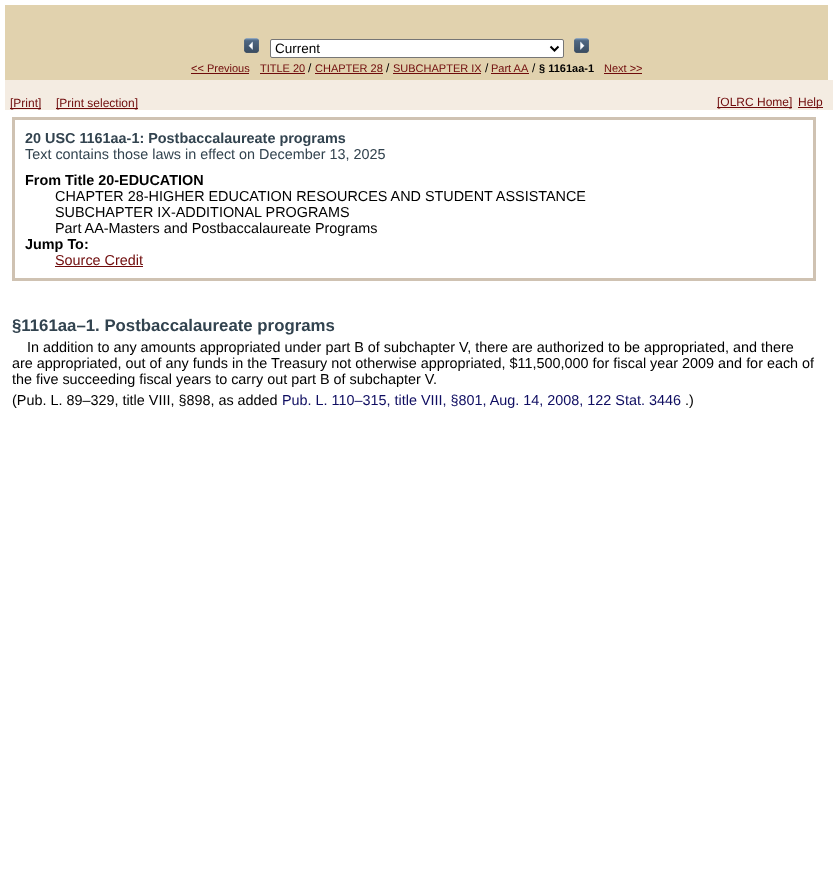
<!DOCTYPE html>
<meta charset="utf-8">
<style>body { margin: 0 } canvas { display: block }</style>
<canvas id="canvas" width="833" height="889"></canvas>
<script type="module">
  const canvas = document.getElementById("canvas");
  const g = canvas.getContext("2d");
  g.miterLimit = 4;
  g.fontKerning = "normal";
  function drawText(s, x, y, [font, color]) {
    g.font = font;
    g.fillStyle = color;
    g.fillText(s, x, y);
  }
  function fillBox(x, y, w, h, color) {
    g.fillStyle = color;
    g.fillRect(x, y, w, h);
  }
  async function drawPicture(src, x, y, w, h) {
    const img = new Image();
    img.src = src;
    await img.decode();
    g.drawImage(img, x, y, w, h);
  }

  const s1 = ["13.5px Liberation Sans", "#000000"];
  const s2 = ["11px Liberation Sans", "#6F0B0B"];
  const s3 = ["12px Liberation Sans", "#000000"];
  const s4 = ["bold 11px Liberation Sans", "#000000"];
  const s5 = ["12px Liberation Sans", "#6F0B0B"];
  const s6 = ["bold 14.4px Liberation Sans", "#32434F"];
  const s7 = ["14.4px Liberation Sans", "#32434F"];
  const s8 = ["bold 14.4px Liberation Sans", "#000000"];
  const s9 = ["14.4px Liberation Sans", "#000000"];
  const s10 = ["14.4px Liberation Sans", "#6F0B0B"];
  const s11 = ["bold 16.8px Liberation Sans", "#32434F"];
  const s12 = ["14.4px Liberation Sans", "#0F0D61"];

  fillBox(0, 0, 833, 889, "#FFFFFF");
  fillBox(5, 5, 823, 75, "#E1D2AE");
  await drawPicture("pic1.png", 244, 38, 15, 15);
  g.fillStyle = "#FFFFFF";
  g.beginPath();
  g.roundRect(270.5, 39.5, 293, 18, 1.5);
  g.fill();
  g.strokeStyle = "#767676";
  g.stroke();
  g.beginPath();
  g.moveTo(550.5, 46.5);
  g.lineTo(554.5, 50.5);
  g.lineTo(558.5, 46.5);
  g.strokeStyle = "#000000";
  g.lineWidth = 2;
  g.stroke();
  drawText("Current", 275, 53, s1);
  await drawPicture("pic2.png", 574, 38, 15, 15);
  drawText("<< Previous", 191, 72, s2);
  fillBox(191, 73, 58, 1, "#6F0B0B");
  drawText("TITLE 20", 260, 72, s2);
  fillBox(260, 73, 45, 1, "#6F0B0B");
  drawText("/", 308, 72, s3);
  drawText("CHAPTER 28", 315, 72, s2);
  fillBox(315, 73, 68, 1, "#6F0B0B");
  drawText("/", 386, 72, s3);
  drawText("SUBCHAPTER IX", 393, 72, s2);
  fillBox(393, 73, 88, 1, "#6F0B0B");
  drawText("/", 485, 72, s3);
  drawText("Part AA", 491, 72, s2);
  fillBox(491, 73, 38, 1, "#6F0B0B");
  drawText("/", 532, 72, s3);
  drawText("§ 1161aa-1", 539, 72, s4);
  drawText("Next >>", 604, 72, s2);
  fillBox(604, 73, 38, 1, "#6F0B0B");
  fillBox(5, 80, 828, 30, "#F4ECE2");
  fillBox(10, 108, 31, 1, "#6F0B0B");
  drawText("[Print]", 10, 107, s5);
  fillBox(56, 108, 82, 1, "#6F0B0B");
  drawText("[Print selection]", 56, 107, s5);
  fillBox(717, 107, 75, 1, "#6F0B0B");
  drawText("[OLRC Home]", 717, 106, s5);
  fillBox(798, 107, 25, 1, "#6F0B0B");
  drawText("Help", 798, 106, s5);
  g.strokeStyle = "#CFC2B2";
  g.lineWidth = 3;
  g.strokeRect(13.5, 118.5, 801, 161);
  drawText("20 USC 1161aa-1: Postbaccalaureate programs", 25, 143, s6);
  drawText("Text contains those laws in effect on December 13, 2025", 25, 159, s7);
  drawText("From Title 20-EDUCATION", 25, 185, s8);
  drawText("CHAPTER 28-HIGHER EDUCATION RESOURCES AND STUDENT ASSISTANCE", 55, 201, s9);
  drawText("SUBCHAPTER IX-ADDITIONAL PROGRAMS", 55, 217, s9);
  drawText("Part AA-Masters and Postbaccalaureate Programs", 55, 233, s9);
  drawText("Jump To:", 25, 249, s8);
  drawText("Source Credit", 55, 265, s10);
  fillBox(55, 266, 88, 1, "#6F0B0B");
  drawText("§1161aa–1. Postbaccalaureate programs", 12, 331, s11);
  drawText("In addition to any amounts appropriated under part B of subchapter V, there are authorized to be appropriated, and there", 27, 352, s9);
  drawText("are appropriated, out of any funds in the Treasury not otherwise appropriated, $11,500,000 for fiscal year 2009 and for each of", 12, 368, s9);
  drawText("the five succeeding fiscal years to carry out part B of subchapter V.", 12, 384, s9);
  drawText("(Pub. L. 89–329, title VIII, §898, as added", 12, 405, s9);
  drawText("Pub. L. 110–315, title VIII, §801, Aug. 14, 2008, 122 Stat. 3446", 282, 405, s12);
  drawText(".)", 685, 405, s9);
</script>
